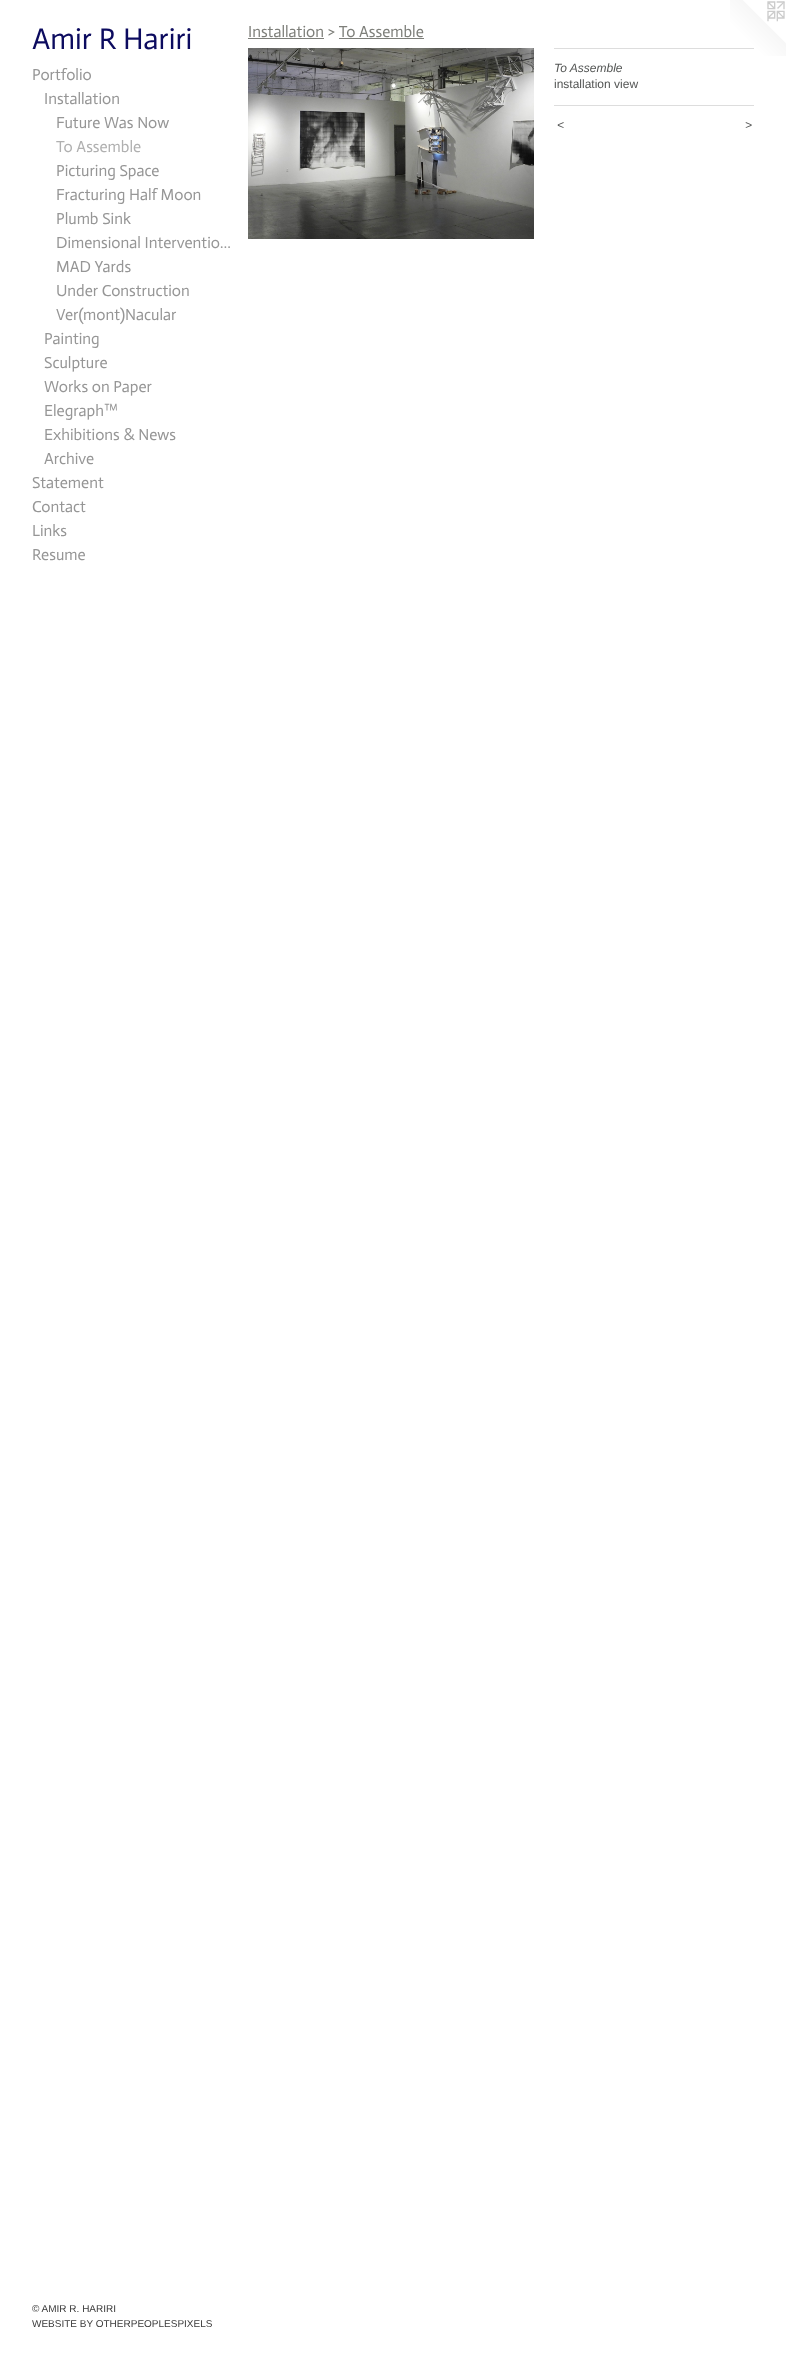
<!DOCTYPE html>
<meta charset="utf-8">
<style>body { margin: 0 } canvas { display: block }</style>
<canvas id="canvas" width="786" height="2354"></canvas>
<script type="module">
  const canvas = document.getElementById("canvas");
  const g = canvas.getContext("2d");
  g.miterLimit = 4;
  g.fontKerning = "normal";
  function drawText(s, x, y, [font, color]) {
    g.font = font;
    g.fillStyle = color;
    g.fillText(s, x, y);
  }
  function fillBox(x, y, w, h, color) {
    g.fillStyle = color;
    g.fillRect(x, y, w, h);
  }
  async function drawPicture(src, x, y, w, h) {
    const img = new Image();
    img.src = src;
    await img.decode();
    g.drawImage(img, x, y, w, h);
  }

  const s1 = ["30px Actor", "#0C0B5F"];
  const s2 = ["16px Actor", "#969696"];
  const s3 = ["16px Actor", "#B0B0B0"];
  const s4 = ["10px Liberation Sans", "#3B3B3B"];
  const s5 = ["16px Actor", "#7E7F7A"];
  const s6 = ["italic 12px Liberation Sans", "#535554"];
  const s7 = ["12px Liberation Sans", "#535554"];

  fillBox(0, 0, 786, 2354, "#FFFFFF");
  drawText("Amir R Hariri", 32, 49, s1);
  drawText("Portfolio", 32, 80, s2);
  drawText("Installation", 44, 104, s2);
  drawText("Future Was Now", 56, 128, s2);
  drawText("To Assemble", 56, 152, s3);
  drawText("Picturing Space", 56, 176, s2);
  drawText("Fracturing Half Moon", 56, 200, s2);
  drawText("Plumb Sink", 56, 224, s2);
  drawText("Dimensional Interventio…", 56, 248, s2);
  drawText("MAD Yards", 56, 272, s2);
  drawText("Under Construction", 56, 296, s2);
  drawText("Ver(mont)Nacular", 56, 320, s2);
  drawText("Painting", 44, 344, s2);
  drawText("Sculpture", 44, 368, s2);
  drawText("Works on Paper", 44, 392, s2);
  drawText("Elegraph™", 44, 416, s2);
  drawText("Exhibitions & News", 44, 440, s2);
  drawText("Archive", 44, 464, s2);
  drawText("Statement", 32, 488, s2);
  drawText("Contact", 32, 512, s2);
  drawText("Links", 32, 536, s2);
  drawText("Resume", 32, 560, s2);
  drawText("© AMIR R. HARIRI", 32, 2312, s4);
  drawText("WEBSITE BY OTHERPEOPLESPIXELS", 32, 2327, s4);
  drawText("Installation > To Assemble", 248, 37, s5);
  fillBox(248, 38, 76, 1, "#7E7F7A");
  fillBox(339, 38, 85, 1, "#7E7F7A");
  await drawPicture("pic1.png", 248, 48, 286, 191);
  await drawPicture("pic2.png", 730, 0, 56, 56);
  fillBox(554, 48, 200, 1, "#DDDDDD");
  drawText("To Assemble", 554, 72, s6);
  drawText("installation view", 554, 88, s7);
  fillBox(554, 105, 200, 1, "#DDDDDD");
  g.letterSpacing = "1px";
  drawText("<", 557, 129, s6);
  drawText(">", 745, 129, s6);
</script>
